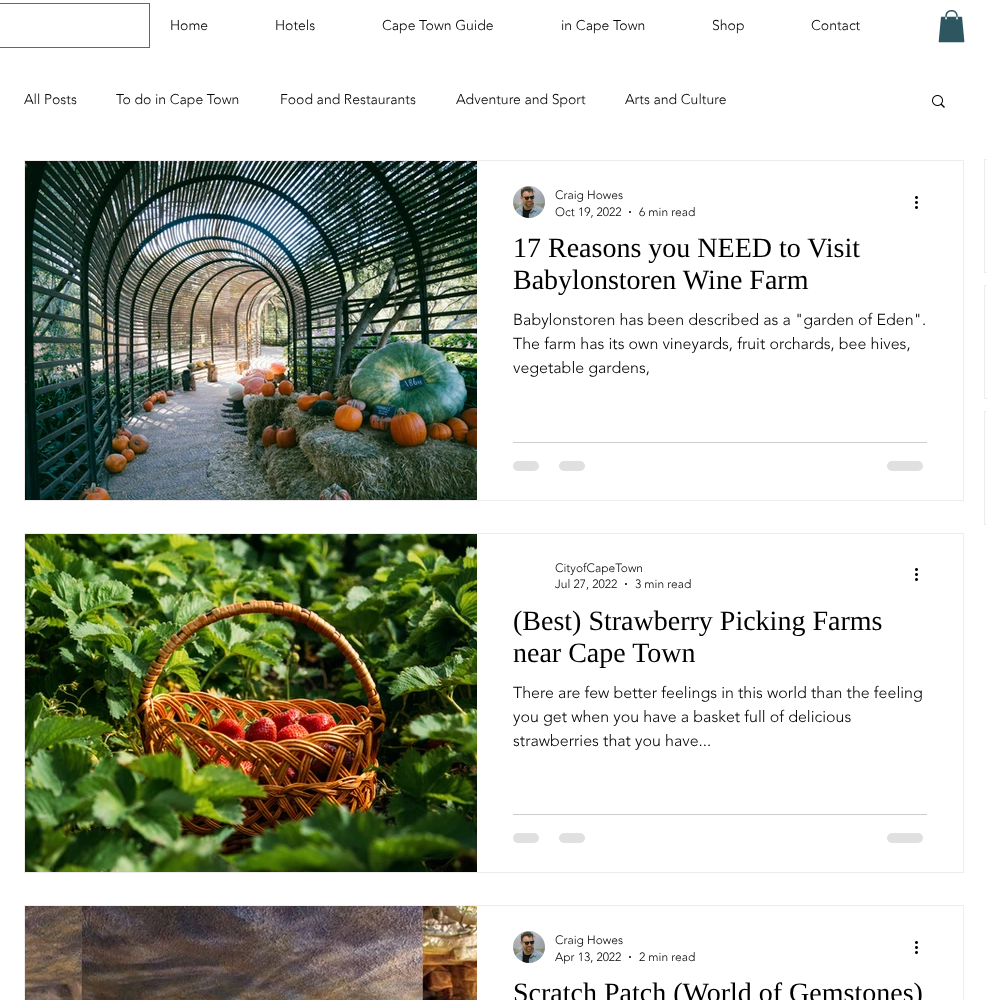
<!DOCTYPE html>
<meta charset="utf-8">
<style>body { margin: 0 } canvas { display: block }</style>
<canvas id="canvas" width="987" height="1000"></canvas>
<script type="module">
  const canvas = document.getElementById("canvas");
  const g = canvas.getContext("2d");
  g.miterLimit = 4;
  g.fontKerning = "normal";
  function drawText(s, x, y, [font, color]) {
    g.font = font;
    g.fillStyle = color;
    g.fillText(s, x, y);
  }
  function fillBox(x, y, w, h, color) {
    g.fillStyle = color;
    g.fillRect(x, y, w, h);
  }
  function fillRounded(x, y, w, h, r, color) {
    g.fillStyle = color;
    g.beginPath();
    g.roundRect(x, y, w, h, r);
    g.fill();
  }
  async function drawPicture(src, x, y, w, h) {
    const img = new Image();
    img.src = src;
    await img.decode();
    g.drawImage(img, x, y, w, h);
  }

  const s1 = ["300 14px 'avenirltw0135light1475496'", "#000000"];
  const s2 = ["300 12px 'avenirltw0135light1475496'", "#000000"];
  const s3 = ["28px Liberation Serif", "#000000"];
  const s4 = ["300 16px 'avenirltw0135light1475496'", "#000000"];

  fillBox(0, 0, 987, 1000, "#FFFFFF");
  g.strokeStyle = "#666666";
  g.strokeRect(-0.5, 3.5, 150, 44);
  drawText("Home", 170, 30, s1);
  drawText("Hotels", 275, 30, s1);
  drawText("Cape Town Guide", 382, 30, s1);
  drawText("in Cape Town", 561, 30, s1);
  drawText("Shop", 712, 30, s1);
  drawText("Contact", 811, 30, s1);
  await drawPicture("pic1.png", 938, 10, 27, 33);
  drawText("All Posts", 24, 104, s1);
  drawText("To do in Cape Town", 116, 104, s1);
  drawText("Food and Restaurants", 280, 104, s1);
  drawText("Adventure and Sport", 456, 104, s1);
  drawText("Arts and Culture", 625, 104, s1);
  await drawPicture("pic2.png", 932, 95, 13, 13);
  g.strokeStyle = "#EEECEC";
  g.strokeRect(24.5, 160.5, 939, 340);
  await drawPicture("pic3.png", 25, 161, 452, 339);
  await drawPicture("pic4.png", 513, 186, 32, 32);
  drawText("Craig Howes", 555, 199, s2);
  drawText("Oct 19, 2022", 555, 216, s2);
  g.beginPath();
  g.arc(630, 212, 1, 0, Math.PI * 2);
  g.fill();
  drawText("6 min read", 639, 216, s2);
  await drawPicture("pic5.png", 915, 196, 3, 13);
  drawText("17 Reasons you NEED to Visit", 513, 257, s3);
  drawText("Babylonstoren Wine Farm", 513, 289, s3);
  drawText("Babylonstoren has been described as a \"garden of Eden\".", 513, 325, s4);
  drawText("The farm has its own vineyards, fruit orchards, bee hives,", 513, 349, s4);
  drawText("vegetable gardens,", 513, 373, s4);
  fillBox(513, 442, 414, 1, "#CCCCCC");
  fillRounded(513, 461, 26, 10, 5, "#E0E0E0");
  fillRounded(559, 461, 26, 10, 5, "#E0E0E0");
  fillRounded(887, 461, 36, 10, 5, "#E0E0E0");
  g.strokeRect(24.5, 533.5, 939, 339);
  await drawPicture("pic6.png", 25, 534, 452, 338);
  drawText("CityofCapeTown", 555, 572, s2);
  drawText("Jul 27, 2022", 555, 588, s2);
  g.beginPath();
  g.arc(626, 584, 1, 0, Math.PI * 2);
  g.fill();
  drawText("3 min read", 635, 588, s2);
  await drawPicture("pic5.png", 915, 568, 3, 13);
  drawText("(Best) Strawberry Picking Farms", 513, 630, s3);
  drawText("near Cape Town", 513, 662, s3);
  drawText("There are few better feelings in this world than the feeling", 513, 698, s4);
  drawText("you get when you have a basket full of delicious", 513, 722, s4);
  drawText("strawberries that you have...", 513, 746, s4);
  fillBox(513, 814, 414, 1, "#CCCCCC");
  fillRounded(513, 833, 26, 10, 5, "#E0E0E0");
  fillRounded(559, 833, 26, 10, 5, "#E0E0E0");
  fillRounded(887, 833, 36, 10, 5, "#E0E0E0");
  g.strokeRect(24.5, 905.5, 939, 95);
  await drawPicture("pic7.png", 25, 906, 452, 94);
  await drawPicture("pic4.png", 513, 931, 32, 32);
  drawText("Craig Howes", 555, 944, s2);
  drawText("Apr 13, 2022", 555, 961, s2);
  g.beginPath();
  g.arc(630, 957, 1, 0, Math.PI * 2);
  g.fill();
  drawText("2 min read", 639, 961, s2);
  await drawPicture("pic5.png", 915, 941, 3, 13);
  drawText("Scratch Patch (World of Gemstones)", 513, 1002, s3);
  g.strokeRect(984.5, 159.5, 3, 113);
  g.strokeRect(984.5, 285.5, 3, 113);
  g.strokeRect(984.5, 411.5, 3, 113);
</script>
